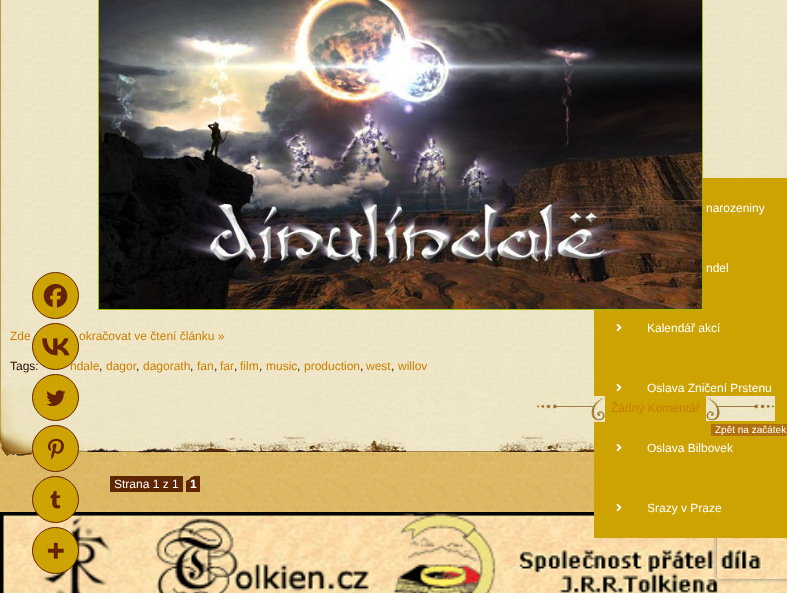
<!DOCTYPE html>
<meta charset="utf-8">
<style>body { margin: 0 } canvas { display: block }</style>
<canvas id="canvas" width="787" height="593"></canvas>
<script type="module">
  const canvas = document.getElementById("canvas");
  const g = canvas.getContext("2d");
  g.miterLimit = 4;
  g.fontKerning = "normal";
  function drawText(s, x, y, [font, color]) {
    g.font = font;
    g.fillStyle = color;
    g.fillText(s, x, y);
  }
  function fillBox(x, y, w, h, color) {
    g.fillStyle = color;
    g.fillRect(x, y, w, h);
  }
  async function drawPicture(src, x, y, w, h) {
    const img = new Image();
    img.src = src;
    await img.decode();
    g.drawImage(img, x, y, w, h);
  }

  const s1 = ["12px Liberation Sans", "#FFFFFF"];
  const s2 = ["12px Liberation Sans", "#240F02"];
  const s3 = ["12px Liberation Sans", "#C97E00"];
  const s4 = ["10px Liberation Sans", "#FFFFFF"];
  const s5 = ["bold 12px Liberation Sans", "#FFFFFF"];

  fillBox(0, 0, 787, 593, "#FFFFFF");
  await drawPicture("pic1.png", 0, 456, 594, 56);
  await drawPicture("pic3.png", 1, 0, 786, 387);
  fillBox(703, 178, 84, 120, "#CCA300");
  drawText("narozeniny", 706, 212, s1);
  drawText("ndel", 706, 272, s1);
  await drawPicture("pic15.png", 0, 512, 787, 81);
  g.save();
  g.beginPath();
  g.moveTo(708, 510);
  g.lineTo(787, 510);
  g.lineTo(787, 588);
  g.lineTo(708, 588);
  g.closePath();
  g.moveTo(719, 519);
  g.lineTo(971, 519);
  g.bezierCurveTo(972, 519, 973, 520, 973, 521);
  g.lineTo(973, 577);
  g.bezierCurveTo(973, 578, 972, 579, 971, 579);
  g.lineTo(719, 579);
  g.bezierCurveTo(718, 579, 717, 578, 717, 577);
  g.lineTo(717, 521);
  g.bezierCurveTo(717, 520, 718, 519, 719, 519);
  g.closePath();
  g.clip("evenodd");
  g.fillStyle = "#808080";
  g.filter = "blur(2.5px)";
  g.beginPath();
  g.roundRect(717, 519, 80, 60, 2);
  g.fill();
  g.filter = "none";
  g.restore();
  fillBox(594, 298, 193, 240, "#CCA300");
  await drawPicture("pic2.png", 616, 323, 6, 9);
  drawText("Kalendář akcí", 647, 332, s1);
  await drawPicture("pic2.png", 616, 383, 6, 9);
  drawText("Oslava Zničení Prstenu", 647, 392, s1);
  await drawPicture("pic2.png", 616, 443, 6, 9);
  drawText("Oslava Bilbovek", 647, 452, s1);
  await drawPicture("pic2.png", 616, 503, 6, 9);
  drawText("Srazy v Praze", 647, 512, s1);
  fillBox(0, 0, 1, 387, "#B99A4E");
  await drawPicture("pic4.png", 0, 387, 594, 69);
  g.strokeStyle = "#99BA09";
  g.strokeRect(98.5, -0.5, 604, 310);
  await drawPicture("pic5.png", 99, 0, 603, 309);
  g.fillStyle = "#CCA300";
  g.beginPath();
  g.arc(55.5, 295.5, 23, 0, Math.PI * 2);
  g.fill();
  g.strokeStyle = "#662200";
  g.stroke();
  await drawPicture("pic6.png", 43, 283, 25, 25);
  drawText("Tags:", 10, 370, s2);
  drawText("ndale", 70, 370, s3);
  g.fillStyle = "#CCA300";
  g.beginPath();
  g.arc(55.5, 346.5, 23, 0, Math.PI * 2);
  g.fill();
  g.stroke();
  await drawPicture("pic7.png", 42, 338, 28, 18);
  g.beginPath();
  g.arc(55.5, 397.5, 23, 0, Math.PI * 2);
  g.fill();
  g.stroke();
  await drawPicture("pic8.png", 46, 390, 20, 16);
  g.beginPath();
  g.arc(55.5, 448.5, 23, 0, Math.PI * 2);
  g.fill();
  g.stroke();
  await drawPicture("pic9.png", 47, 438, 17, 22);
  g.beginPath();
  g.arc(55.5, 499.5, 23, 0, Math.PI * 2);
  g.fill();
  g.stroke();
  await drawPicture("pic10.png", 50, 491, 11, 18);
  g.beginPath();
  g.arc(55.5, 550.5, 23, 0, Math.PI * 2);
  g.fill();
  g.stroke();
  await drawPicture("pic11.png", 47, 542, 17, 17);
  drawText("Zde", 10, 340, s3);
  drawText("okračovat ve čtení článku »", 79, 340, s3);
  drawText(",", 99, 370, s2);
  drawText("dagor", 106, 370, s3);
  drawText(",", 136, 370, s2);
  drawText("dagorath", 143, 370, s3);
  drawText(",", 190, 370, s2);
  drawText("fan", 197, 370, s3);
  drawText(",", 214, 370, s2);
  drawText("far", 220, 370, s3);
  drawText(",", 234, 370, s2);
  drawText("film", 240, 370, s3);
  drawText(",", 259, 370, s2);
  drawText("music", 266, 370, s3);
  drawText(",", 297, 370, s2);
  drawText("production", 304, 370, s3);
  drawText(",", 360, 370, s2);
  drawText("west", 366, 370, s3);
  drawText(",", 391, 370, s2);
  drawText("willov", 398, 370, s3);
  await drawPicture("pic12.png", 706, 396, 69, 25);
  await drawPicture("pic13.png", 536, 396, 69, 26);
  drawText("Žádný Komentář", 611, 412, s3);
  fillBox(711, 424, 76, 12, "#B27110");
  drawText("Zpět na začátek", 715, 433, s4);
  fillBox(110, 476, 73, 16, "#602600");
  drawText("Strana 1 z 1", 114, 488, s1);
  fillBox(186, 476, 14, 16, "#602600");
  await drawPicture("pic14.png", 186, 476, 7, 5);
  drawText("1", 190, 488, s5);
</script>
